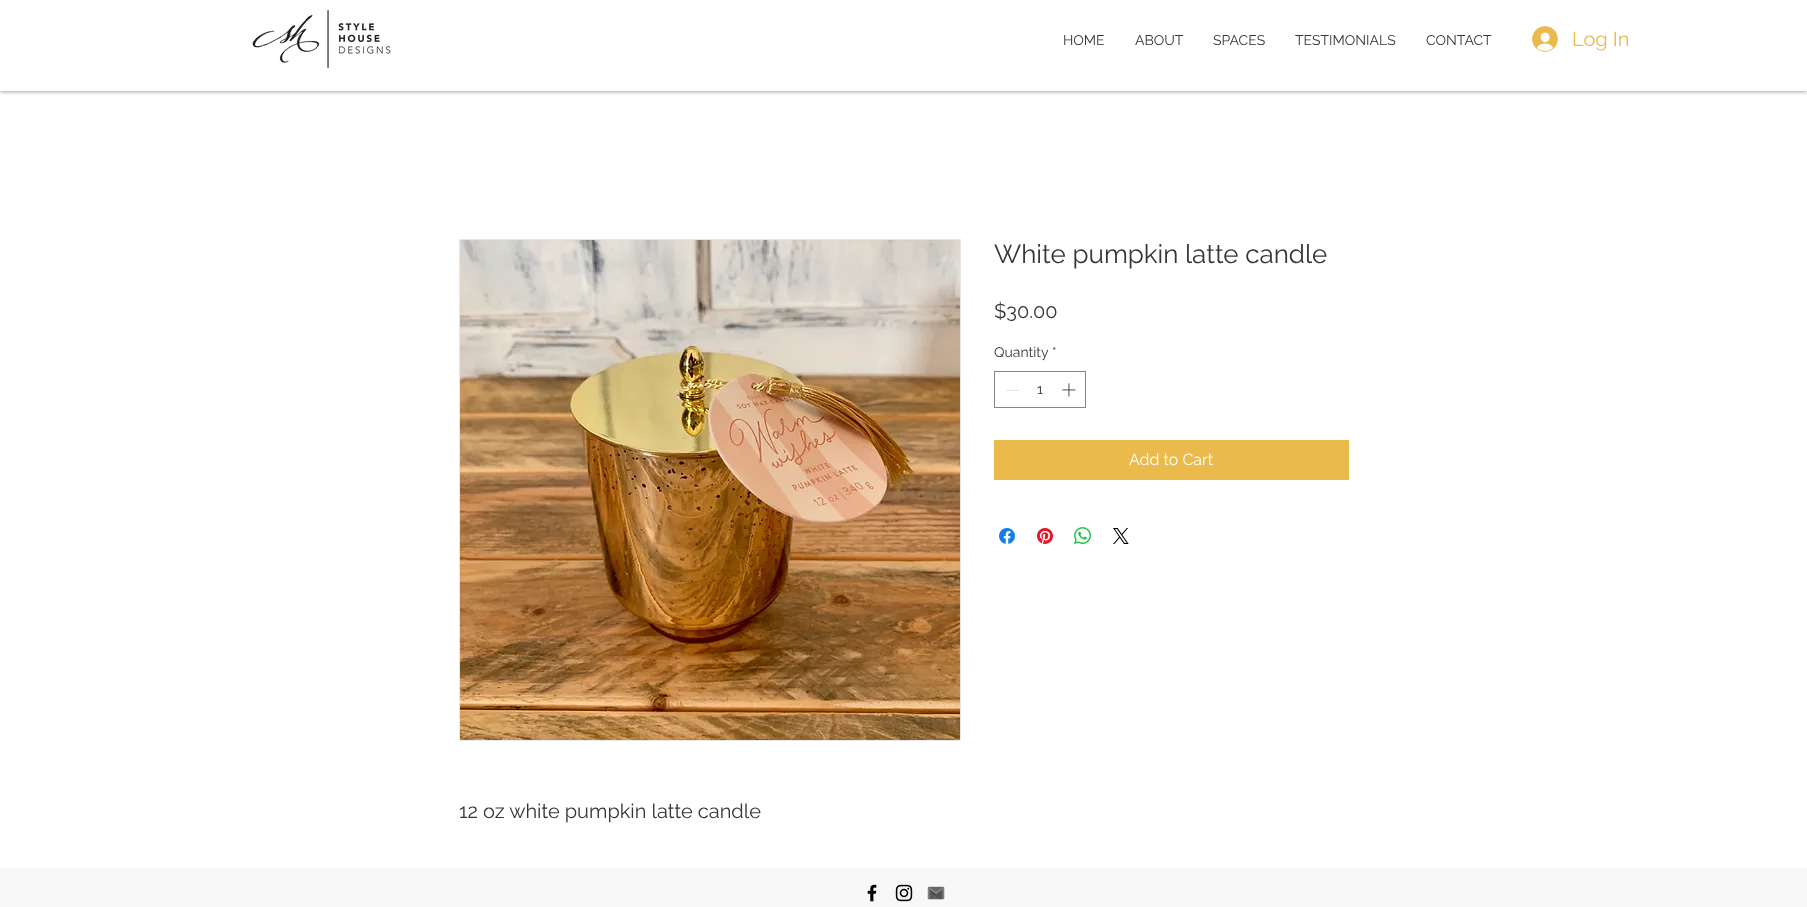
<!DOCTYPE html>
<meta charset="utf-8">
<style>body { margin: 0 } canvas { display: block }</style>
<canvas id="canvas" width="1807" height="907"></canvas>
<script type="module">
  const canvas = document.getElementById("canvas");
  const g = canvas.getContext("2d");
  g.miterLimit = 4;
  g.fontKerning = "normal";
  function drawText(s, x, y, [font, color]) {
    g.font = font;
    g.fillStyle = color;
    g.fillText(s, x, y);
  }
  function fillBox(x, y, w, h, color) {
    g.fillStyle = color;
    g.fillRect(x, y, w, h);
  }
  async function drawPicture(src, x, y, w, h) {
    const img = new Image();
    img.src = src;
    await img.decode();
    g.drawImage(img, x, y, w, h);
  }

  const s1 = ["14px Raleway", "#363636"];
  const s2 = ["20px Raleway", "#EBBA4D"];
  const s3 = ["26px Raleway", "#363636"];
  const s4 = ["20px Raleway", "#363636"];
  const s5 = ["16px Raleway", "#FFFFFF"];

  fillBox(0, 0, 1807, 907, "#FFFFFF");
  g.save();
  g.beginPath();
  g.rect(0, 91, 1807, 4);
  g.clip();
  g.fillStyle = "rgba(0, 0, 0, 0.5)";
  g.filter = "blur(2.5px)";
  g.beginPath();
  g.rect(0, 0, 1807, 91);
  g.fill();
  g.filter = "none";
  g.restore();
  drawText("HOME", 1063, 45, s1);
  drawText("ABOUT", 1135, 45, s1);
  drawText("SPACES", 1213, 45, s1);
  drawText("TESTIMONIALS", 1295, 45, s1);
  drawText("CONTACT", 1426, 45, s1);
  await drawPicture("pic1.png", 252, 10, 139, 58);
  await drawPicture("pic2.png", 1532, 26, 26, 26);
  drawText("Log In", 1572, 46, s2);
  drawText("White pumpkin latte candle", 994, 263, s3);
  drawText("$30.00", 994, 318, s4);
  drawText("Quantity", 994, 357, s1);
  drawText("*", 1052, 357, s1);
  g.strokeStyle = "#868686";
  g.strokeRect(994.5, 371.5, 91, 36);
  fillBox(1006, 390, 13, 1, "#E3E3E3");
  drawText("1", 1037, 394, s1);
  await drawPicture("pic3.png", 1062, 383, 14, 14);
  fillBox(994, 440, 355, 40, "#EBBA4D");
  drawText("Add to Cart", 1129, 465, s5);
  await drawPicture("pic4.png", 999, 528, 16, 16);
  await drawPicture("pic5.png", 1037, 528, 16, 16);
  await drawPicture("pic6.png", 1074, 527, 17, 17);
  await drawPicture("pic7.png", 1113, 528, 16, 16);
  g.strokeStyle = "#E8E6E6";
  g.strokeRect(459.5, 239.5, 501, 501);
  await drawPicture("pic8.png", 460, 240, 500, 500);
  drawText("12 oz white pumpkin latte candle", 459, 818, s4);
  fillBox(0, 868, 1807, 39, "#F8F8F8");
  await drawPicture("pic9.png", 867, 884, 10, 18);
  await drawPicture("pic10.png", 895, 884, 18, 18);
  await drawPicture("pic11.png", 927, 886, 18, 14);
</script>
